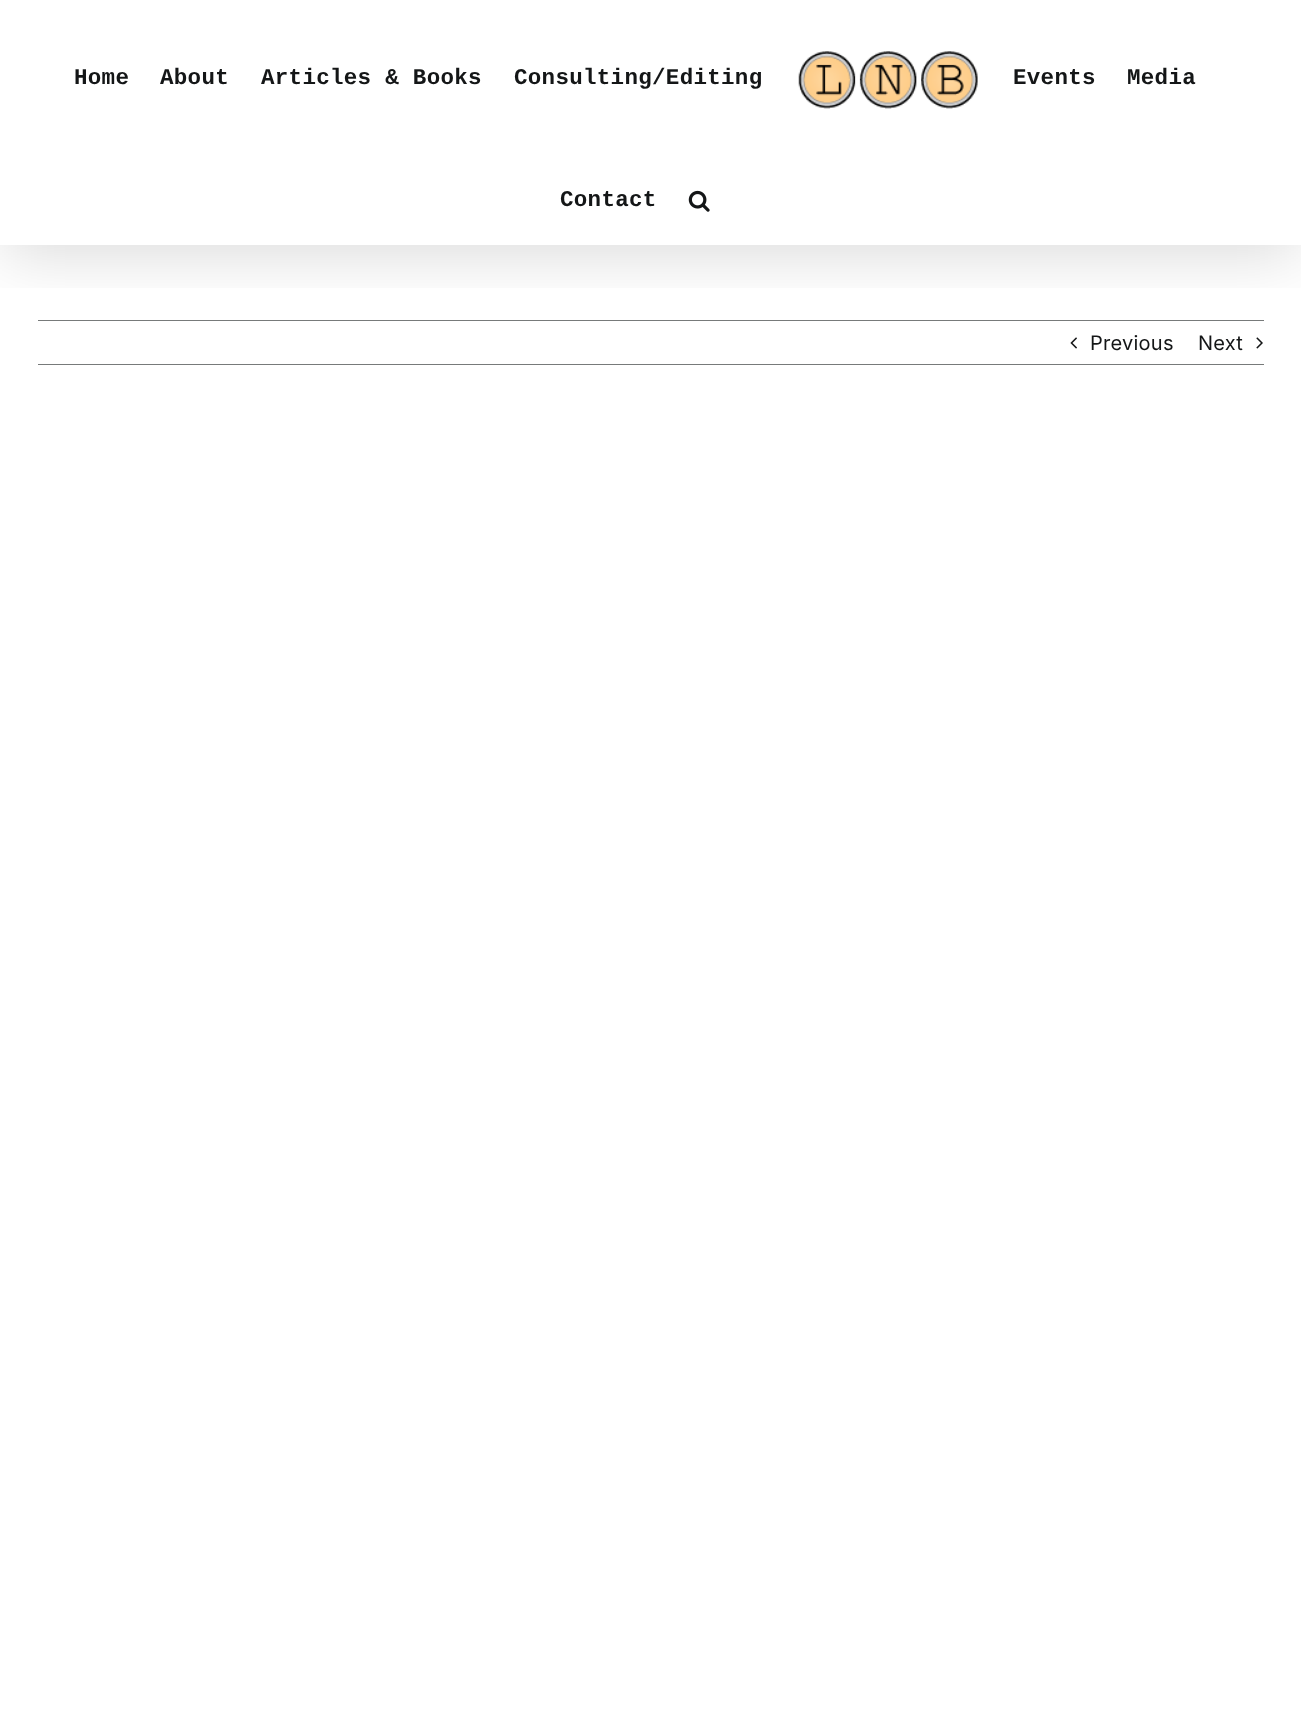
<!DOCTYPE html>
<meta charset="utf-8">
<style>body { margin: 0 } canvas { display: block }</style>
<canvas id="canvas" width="1301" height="1735"></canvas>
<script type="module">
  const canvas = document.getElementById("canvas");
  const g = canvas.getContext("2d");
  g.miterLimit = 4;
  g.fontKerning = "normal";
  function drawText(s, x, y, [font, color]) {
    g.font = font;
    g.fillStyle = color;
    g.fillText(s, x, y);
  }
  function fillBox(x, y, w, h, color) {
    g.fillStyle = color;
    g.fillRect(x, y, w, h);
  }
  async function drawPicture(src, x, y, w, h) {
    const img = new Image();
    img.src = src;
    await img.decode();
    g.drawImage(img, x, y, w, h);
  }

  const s1 = ["bold 22.5px Liberation Mono", "#141617"];
  const s2 = ["20px Inter", "#141617"];

  fillBox(0, 0, 1301, 1735, "#FFFFFF");
  fillBox(38, 320, 1226, 1, "#777A7A");
  await drawPicture("pic3.png", 1070, 337, 7, 12);
  await drawPicture("pic4.png", 1256, 337, 7, 12);
  g.save();
  g.beginPath();
  g.rect(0, 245, 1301, 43);
  g.clip();
  g.fillStyle = "rgba(0, 0, 0, 0.14)";
  g.filter = "blur(31px)";
  g.beginPath();
  g.rect(3, 15, 1296, 240);
  g.fill();
  g.filter = "none";
  g.restore();
  g.letterSpacing = "0.3px";
  drawText("Home", 74, 84, s1);
  drawText("About", 160, 84, s1);
  drawText("Articles & Books", 261, 84, s1);
  drawText("Consulting/Editing", 514, 84, s1);
  await drawPicture("pic1.png", 798, 51, 180, 58);
  drawText("Events", 1013, 84, s1);
  drawText("Media", 1127, 84, s1);
  drawText("Contact", 560, 206, s1);
  await drawPicture("pic2.png", 688, 190, 22, 22);
  fillBox(38, 364, 1226, 1, "#777A7A");
  g.letterSpacing = "0.25px";
  drawText("Previous", 1090, 350, s2);
  drawText("Next", 1198, 350, s2);
</script>
